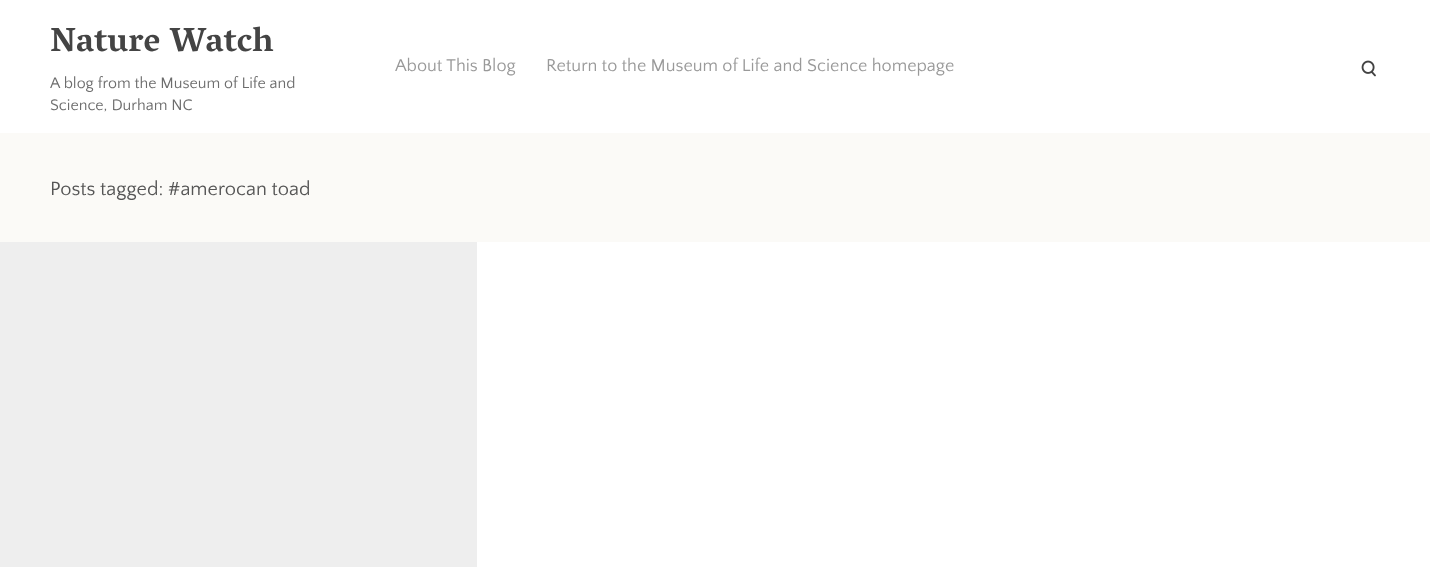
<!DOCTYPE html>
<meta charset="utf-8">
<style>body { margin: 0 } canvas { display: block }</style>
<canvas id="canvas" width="1430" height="567"></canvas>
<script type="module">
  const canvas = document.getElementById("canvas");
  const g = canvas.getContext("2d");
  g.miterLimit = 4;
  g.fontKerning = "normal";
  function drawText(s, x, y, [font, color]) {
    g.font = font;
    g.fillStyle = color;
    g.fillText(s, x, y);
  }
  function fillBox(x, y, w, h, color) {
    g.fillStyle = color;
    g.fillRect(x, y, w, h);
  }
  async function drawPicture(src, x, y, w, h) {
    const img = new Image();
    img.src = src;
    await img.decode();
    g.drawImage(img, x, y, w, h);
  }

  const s1 = ["bold 34px Vesper Libre", "#444444"];
  const s2 = ["16px Quattrocento Sans", "#6D6D6D"];
  const s3 = ["18px Quattrocento Sans", "#999999"];
  const s4 = ["20px Quattrocento Sans", "#555555"];

  fillBox(0, 0, 1430, 567, "#FFFFFF");
  drawText("Nature Watch", 50, 51, s1);
  drawText("A blog from the Museum of Life and", 50, 88, s2);
  drawText("Science, Durham NC", 50, 110, s2);
  drawText("About This Blog", 395, 71, s3);
  drawText("Return to the Museum of Life and Science homepage", 546, 71, s3);
  await drawPicture("pic1.png", 1361, 60, 15, 17);
  fillBox(0, 133, 1430, 109, "#FBFAF7");
  drawText("Posts tagged: #amerocan toad", 50, 195, s4);
  fillBox(0, 242, 477, 325, "#EEEEEE");
</script>
